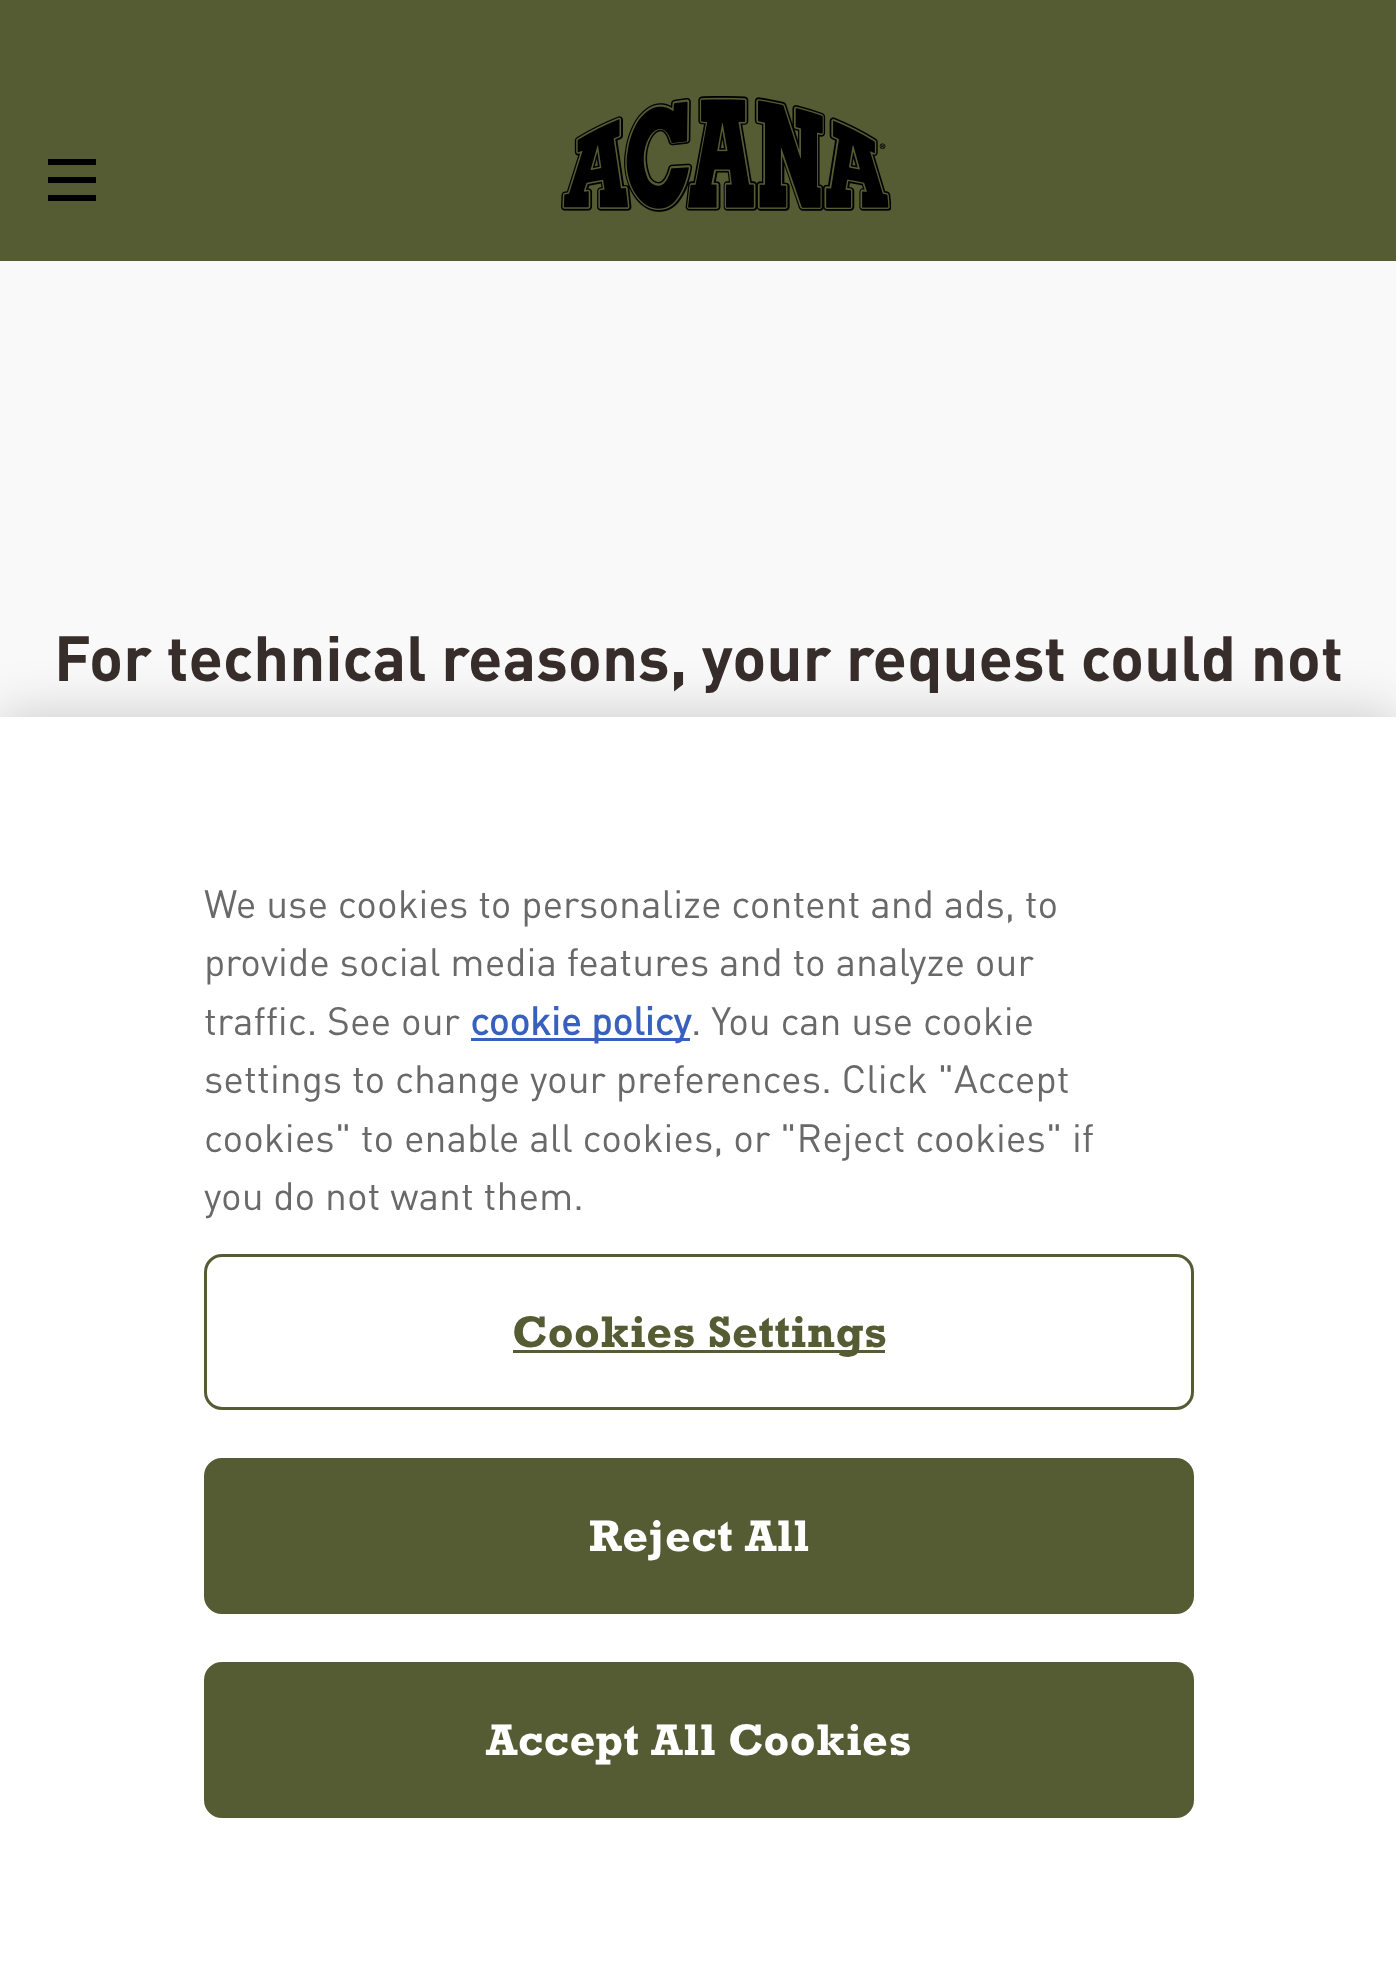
<!DOCTYPE html>
<meta charset="utf-8">
<style>body { margin: 0 } canvas { display: block }</style>
<canvas id="canvas" width="1396" height="1961"></canvas>
<script type="module">
  const canvas = document.getElementById("canvas");
  const g = canvas.getContext("2d");
  g.miterLimit = 4;
  g.fontKerning = "normal";
  function drawText(s, x, y, [font, color]) {
    g.font = font;
    g.fillStyle = color;
    g.fillText(s, x, y);
  }
  function fillBox(x, y, w, h, color) {
    g.fillStyle = color;
    g.fillRect(x, y, w, h);
  }
  async function drawPicture(src, x, y, w, h) {
    const img = new Image();
    img.src = src;
    await img.decode();
    g.drawImage(img, x, y, w, h);
  }

  const s1 = ["bold 63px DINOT", "#372E2C"];
  const s2 = ["39px DINOT", "#696969"];
  const s3 = ["bold 39px 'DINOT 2'", "#3860BE"];
  const s4 = ["bold 45px Rockwell", "#555B33"];
  const s5 = ["bold 45px Rockwell", "#FFFFFF"];

  fillBox(0, 0, 1396, 1961, "#F9F9F9");
  fillBox(0, 0, 1396, 261, "#555B33");
  g.fillStyle = "#000000";
  g.beginPath();
  g.moveTo(48, 201);
  g.lineTo(48, 195);
  g.lineTo(96, 195);
  g.lineTo(96, 201);
  g.closePath();
  g.moveTo(48, 183);
  g.lineTo(48, 177);
  g.lineTo(96, 177);
  g.lineTo(96, 183);
  g.closePath();
  g.moveTo(48, 165);
  g.lineTo(48, 159);
  g.lineTo(96, 159);
  g.lineTo(96, 165);
  g.closePath();
  g.fill();
  await drawPicture("pic1.png", 561, 96, 330, 116);
  drawText("For technical reasons, your request could not", 54, 681, s1);
  g.fillStyle = "rgba(0, 0, 0, 0.2)";
  g.filter = "blur(27px)";
  g.beginPath();
  g.rect(0, 717, 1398, 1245);
  g.fill();
  g.filter = "none";
  fillBox(0, 717, 1396, 1244, "#FFFFFF");
  drawText("We use cookies to personalize content and ads, to", 204, 918, s2);
  drawText("provide social media features and to analyze our", 204, 976, s2);
  drawText("traffic. See our", 204, 1035, s2);
  fillBox(471, 1038, 219, 3, "#3860BE");
  drawText("cookie policy", 470, 1035, s3);
  drawText(". You can use cookie", 691, 1035, s2);
  drawText("settings to change your preferences. Click \"Accept", 204, 1093, s2);
  drawText("cookies\" to enable all cookies, or \"Reject cookies\" if", 204, 1152, s2);
  drawText("you do not want them.", 204, 1210, s2);
  g.beginPath();
  g.roundRect(205.5, 1255.5, 987, 153, 16.5);
  g.strokeStyle = "#555B33";
  g.lineWidth = 3;
  g.stroke();
  fillBox(513, 1350, 372, 3, "#555B33");
  g.letterSpacing = "0.5px";
  drawText("Cookies Settings", 512, 1347, s4);
  g.beginPath();
  g.roundRect(205.5, 1459.5, 987, 153, 16.5);
  g.fill();
  g.stroke();
  drawText("Reject All", 589, 1551, s5);
  g.fillStyle = "#555B33";
  g.beginPath();
  g.roundRect(205.5, 1663.5, 987, 153, 16.5);
  g.fill();
  g.stroke();
  drawText("Accept All Cookies", 486, 1755, s5);
</script>
